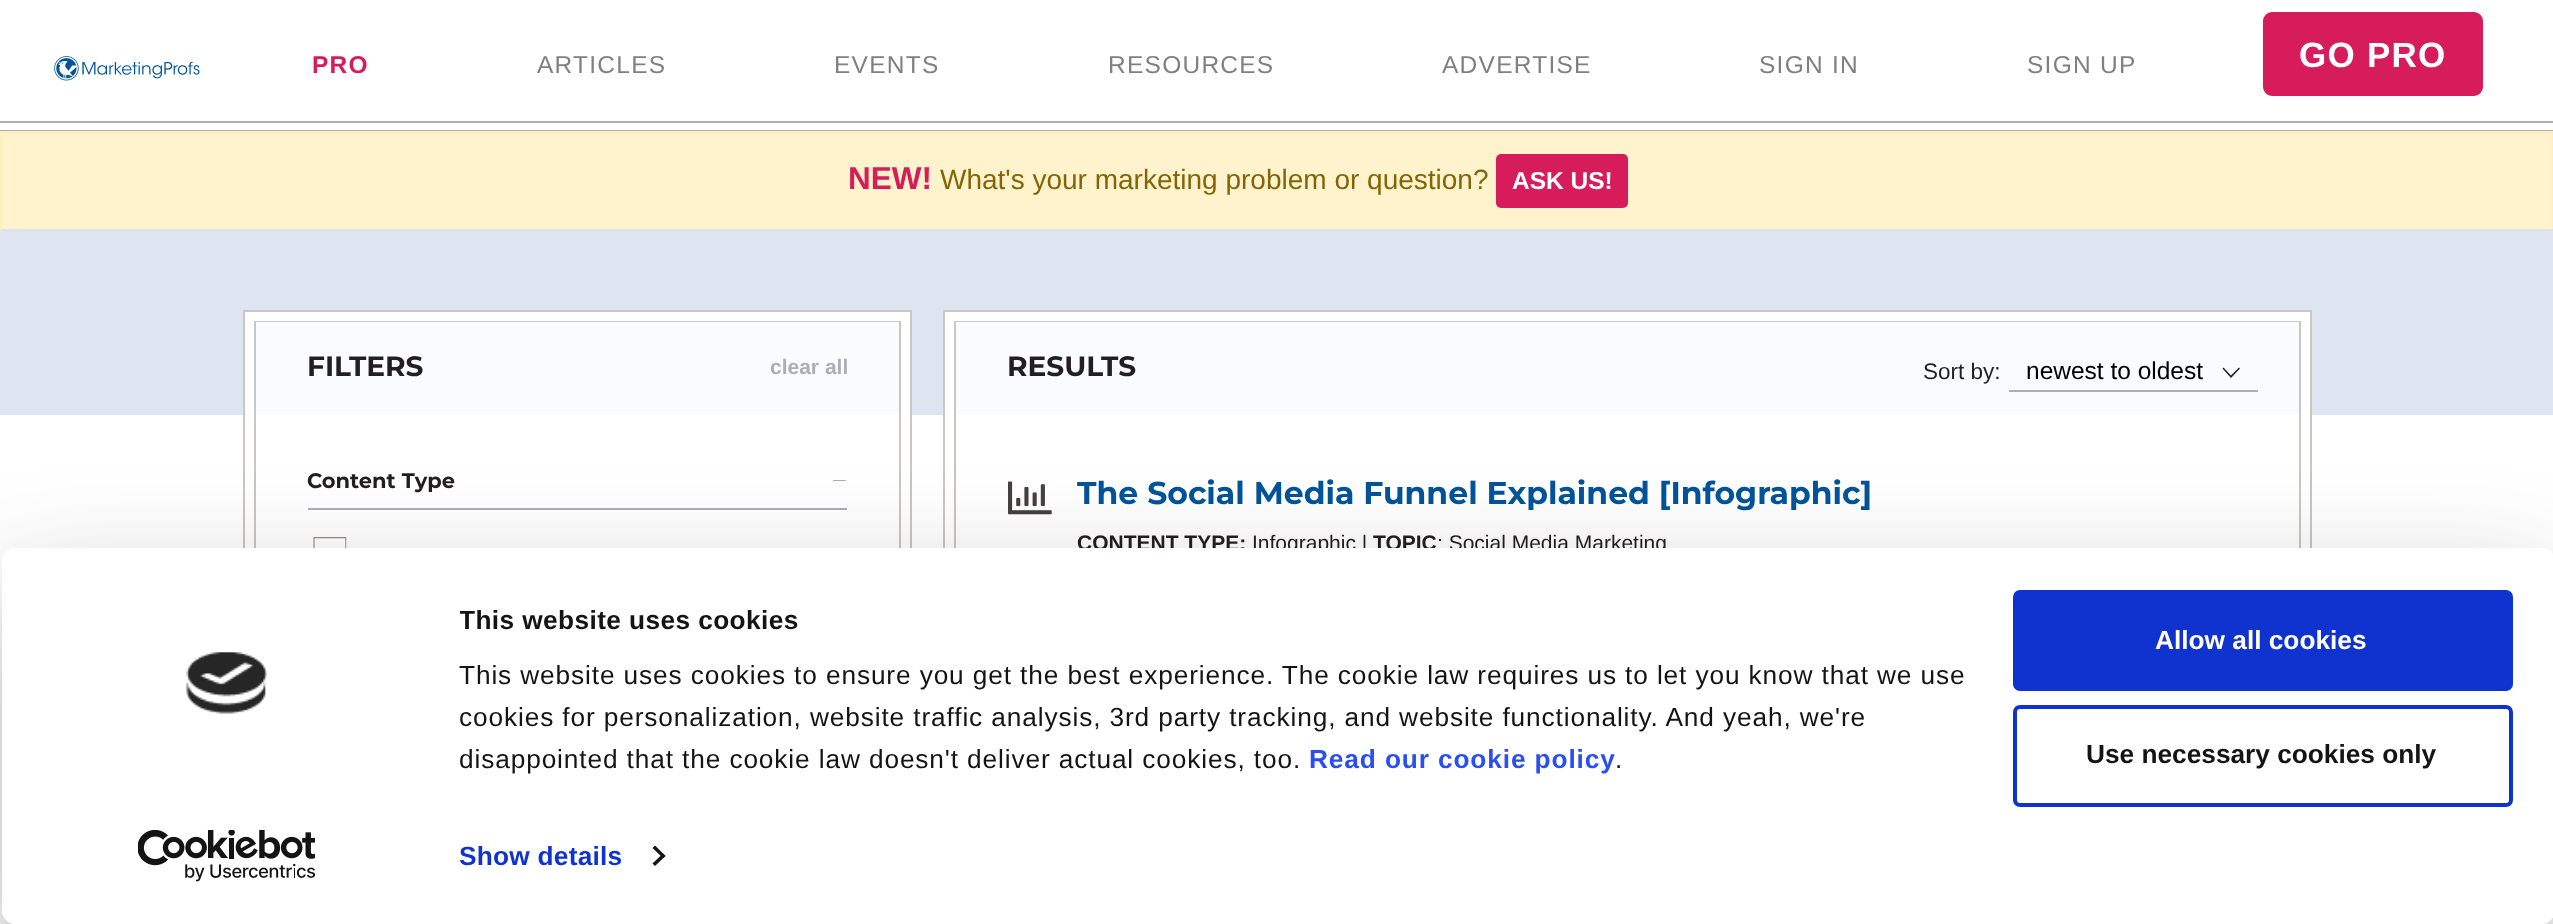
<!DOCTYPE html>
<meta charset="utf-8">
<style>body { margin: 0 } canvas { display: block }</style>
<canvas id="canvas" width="2553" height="924"></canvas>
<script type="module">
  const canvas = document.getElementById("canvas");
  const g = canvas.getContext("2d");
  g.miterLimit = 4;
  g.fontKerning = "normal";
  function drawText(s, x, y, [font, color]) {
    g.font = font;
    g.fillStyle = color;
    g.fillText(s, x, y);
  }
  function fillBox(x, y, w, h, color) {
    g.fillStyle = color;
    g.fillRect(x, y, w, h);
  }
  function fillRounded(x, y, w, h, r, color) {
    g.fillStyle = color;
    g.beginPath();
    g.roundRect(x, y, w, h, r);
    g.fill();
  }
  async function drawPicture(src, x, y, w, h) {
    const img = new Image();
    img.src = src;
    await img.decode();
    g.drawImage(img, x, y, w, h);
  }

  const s1 = ["bold 24.5px Liberation Sans", "#D61C5B"];
  const s2 = ["24.5px Liberation Sans", "#808080"];
  const s3 = ["bold 35px Liberation Sans", "#FFFFFF"];
  const s4 = ["bold 31.5px Liberation Sans", "#D61C5B"];
  const s5 = ["28px Liberation Sans", "#856404"];
  const s6 = ["bold 24.5px Liberation Sans", "#FFFFFF"];
  const s7 = ["bold 28px Montserrat", "#231F20"];
  const s8 = ["bold 21px Liberation Sans", "#AFADB2"];
  const s9 = ["bold 21px Montserrat", "#231F20"];
  const s10 = ["22.5px Liberation Sans", "#231F20"];
  const s11 = ["24.5px Liberation Sans", "#000000"];
  const s12 = ["bold 31.5px Montserrat", "#00549A"];
  const s13 = ["bold 21px Liberation Sans", "#231F20"];
  const s14 = ["21px Liberation Sans", "#231F20"];
  const s15 = ["bold 26.25px Liberation Sans", "#141414"];
  const s16 = ["26.25px Liberation Sans", "#141414"];
  const s17 = ["bold 26.25px Liberation Sans", "#2A4EEF"];
  const s18 = ["bold 26.25px Liberation Sans", "#1032CF"];
  const s19 = ["bold 26.25px Liberation Sans", "#FFFFFF"];

  fillBox(0, 0, 2553, 924, "#FFFFFF");
  fillBox(0, 130, 2553, 1, "#AFADB2");
  await drawPicture("pic1.png", 54, 56, 146, 25);
  g.letterSpacing = "1.25px";
  drawText("PRO", 312, 73, s1);
  drawText("ARTICLES", 537, 73, s2);
  drawText("EVENTS", 834, 73, s2);
  drawText("RESOURCES", 1108, 73, s2);
  drawText("ADVERTISE", 1442, 73, s2);
  drawText("SIGN IN", 1759, 73, s2);
  drawText("SIGN UP", 2027, 73, s2);
  g.fillStyle = "#D61C5B";
  g.beginPath();
  g.roundRect(2264, 13, 218, 82, 8);
  g.fill();
  g.strokeStyle = "#D61C5B";
  g.lineWidth = 2;
  g.stroke();
  drawText("GO PRO", 2299, 67, s3);
  fillBox(0, 121, 2553, 2, "#AFADB2");
  fillBox(2, 133, 2550, 96, "#FFF3CD");
  fillBox(0, 131, 2553, 2, "#FFEEBA");
  fillBox(2552, 131, 1, 100, "#FFEEBA");
  fillBox(0, 229, 2553, 2, "#DEE2E6");
  fillBox(0, 131, 2, 100, "#FFEEBA");
  g.letterSpacing = "0px";
  drawText("NEW!", 848, 189, s4);
  drawText("What's your marketing problem or question?", 940, 189, s5);
  g.fillStyle = "#D61C5B";
  g.beginPath();
  g.roundRect(1497, 155, 130, 52, 4);
  g.fill();
  g.stroke();
  drawText("ASK US!", 1512, 189, s6);
  fillBox(0, 231, 2553, 184, "#DEE5F0");
  g.strokeStyle = "#CAC6C1";
  g.lineWidth = 11;
  g.strokeRect(248.5, 315.5, 658, 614);
  fillBox(256, 322, 643, 93, "rgba(255, 255, 255, 0.85)");
  g.lineWidth = 2;
  g.strokeRect(255, 321, 645, 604);
  fillBox(308, 508, 539, 2, "#AFADB2");
  fillBox(833, 480, 13, 1, "#AFADB2");
  g.strokeStyle = "#FFFFFF";
  g.lineWidth = 9;
  g.strokeRect(249.5, 316.5, 656, 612);
  drawText("FILTERS", 307, 376, s7);
  drawText("clear all", 770, 374, s8);
  drawText("Content Type", 307, 488, s9);
  await drawPicture("pic2.png", 313, 537, 34, 11);
  g.strokeStyle = "#CAC6C1";
  g.lineWidth = 11;
  g.strokeRect(948.5, 315.5, 1358, 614);
  fillBox(956, 322, 1343, 93, "rgba(255, 255, 255, 0.85)");
  g.lineWidth = 2;
  g.strokeRect(955, 321, 1345, 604);
  g.strokeStyle = "#FFFFFF";
  g.lineWidth = 9;
  g.strokeRect(949.5, 316.5, 1356, 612);
  drawText("RESULTS", 1007, 376, s7);
  drawText("Sort by:", 1923, 379, s10);
  fillBox(2009, 390, 249, 2, "#AFADB2");
  drawText("newest to oldest", 2026, 379, s11);
  g.fillStyle = "#231F20";
  g.beginPath();
  g.moveTo(2239, 367.5);
  g.lineTo(2240, 368.5);
  g.lineTo(2231, 378);
  g.lineTo(2222.5, 368.5);
  g.lineTo(2223.5, 367.5);
  g.lineTo(2231, 375.5);
  g.closePath();
  g.fill();
  await drawPicture("pic3.png", 1008, 481, 44, 34);
  drawText("The Social Media Funnel Explained [Infographic]", 1077, 504, s12);
  drawText("CONTENT TYPE:", 1077, 550, s13);
  drawText("Infographic |", 1252, 550, s14);
  drawText("TOPIC", 1373, 550, s13);
  drawText(": Social Media Marketing", 1437, 550, s14);
  g.save();
  g.beginPath();
  g.moveTo(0, 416);
  g.lineTo(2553, 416);
  g.lineTo(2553, 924);
  g.lineTo(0, 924);
  g.closePath();
  g.moveTo(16, 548);
  g.lineTo(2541, 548);
  g.bezierCurveTo(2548.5, 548, 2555, 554.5, 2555, 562);
  g.lineTo(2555, 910);
  g.bezierCurveTo(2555, 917.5, 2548.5, 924, 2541, 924);
  g.lineTo(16, 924);
  g.bezierCurveTo(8.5, 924, 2, 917.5, 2, 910);
  g.lineTo(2, 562);
  g.bezierCurveTo(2, 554.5, 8.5, 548, 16, 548);
  g.closePath();
  g.clip("evenodd");
  g.fillStyle = "rgba(0, 0, 0, 0.3)";
  g.filter = "blur(61px)";
  g.beginPath();
  g.roundRect(2, 600, 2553, 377, 14);
  g.fill();
  g.filter = "none";
  g.restore();
  fillRounded(2, 548, 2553, 376, 14, "#FFFFFF");
  await drawPicture("pic4.png", 186, 652, 81, 62);
  await drawPicture("pic5.png", 138, 830, 177, 52);
  g.save();
  g.beginPath();
  g.rect(460, 600, 1542, 181);
  g.clip();
  g.letterSpacing = "0.4px";
  drawText("This website uses cookies", 459, 629, s15);
  g.restore();
  g.letterSpacing = "0.88px";
  drawText("This website uses cookies to ensure you get the best experience. The cookie law requires us to let you know that we use", 459, 684, s16);
  g.save();
  g.beginPath();
  g.rect(460, 600, 1542, 181);
  g.clip();
  drawText("cookies for personalization, website traffic analysis, 3rd party tracking, and website functionality. And yeah, we're", 459, 726, s16);
  drawText("disappointed that the cookie law doesn't deliver actual cookies, too.", 459, 768, s16);
  g.restore();
  drawText("Read our cookie policy", 1309, 768, s17);
  drawText(".", 1615, 768, s16);
  g.letterSpacing = "0.25px";
  drawText("Show details", 459, 865, s18);
  g.fillStyle = "#141414";
  g.beginPath();
  g.moveTo(655, 845.5);
  g.lineTo(665.5, 856);
  g.lineTo(663, 858);
  g.lineTo(652.5, 848);
  g.closePath();
  g.fill();
  g.beginPath();
  g.moveTo(663, 853.5);
  g.lineTo(665.5, 856);
  g.lineTo(655, 866);
  g.lineTo(652.5, 863.5);
  g.closePath();
  g.fill();
  g.fillStyle = "#1032CF";
  g.beginPath();
  g.roundRect(2015, 592, 496, 97, 5);
  g.fill();
  g.strokeStyle = "#1032CF";
  g.lineWidth = 4;
  g.stroke();
  g.letterSpacing = "0px";
  drawText("Allow all cookies", 2155, 649, s19);
  g.beginPath();
  g.roundRect(2015, 707, 496, 98, 5);
  g.stroke();
  drawText("Use necessary cookies only", 2086, 763, s15);
</script>
